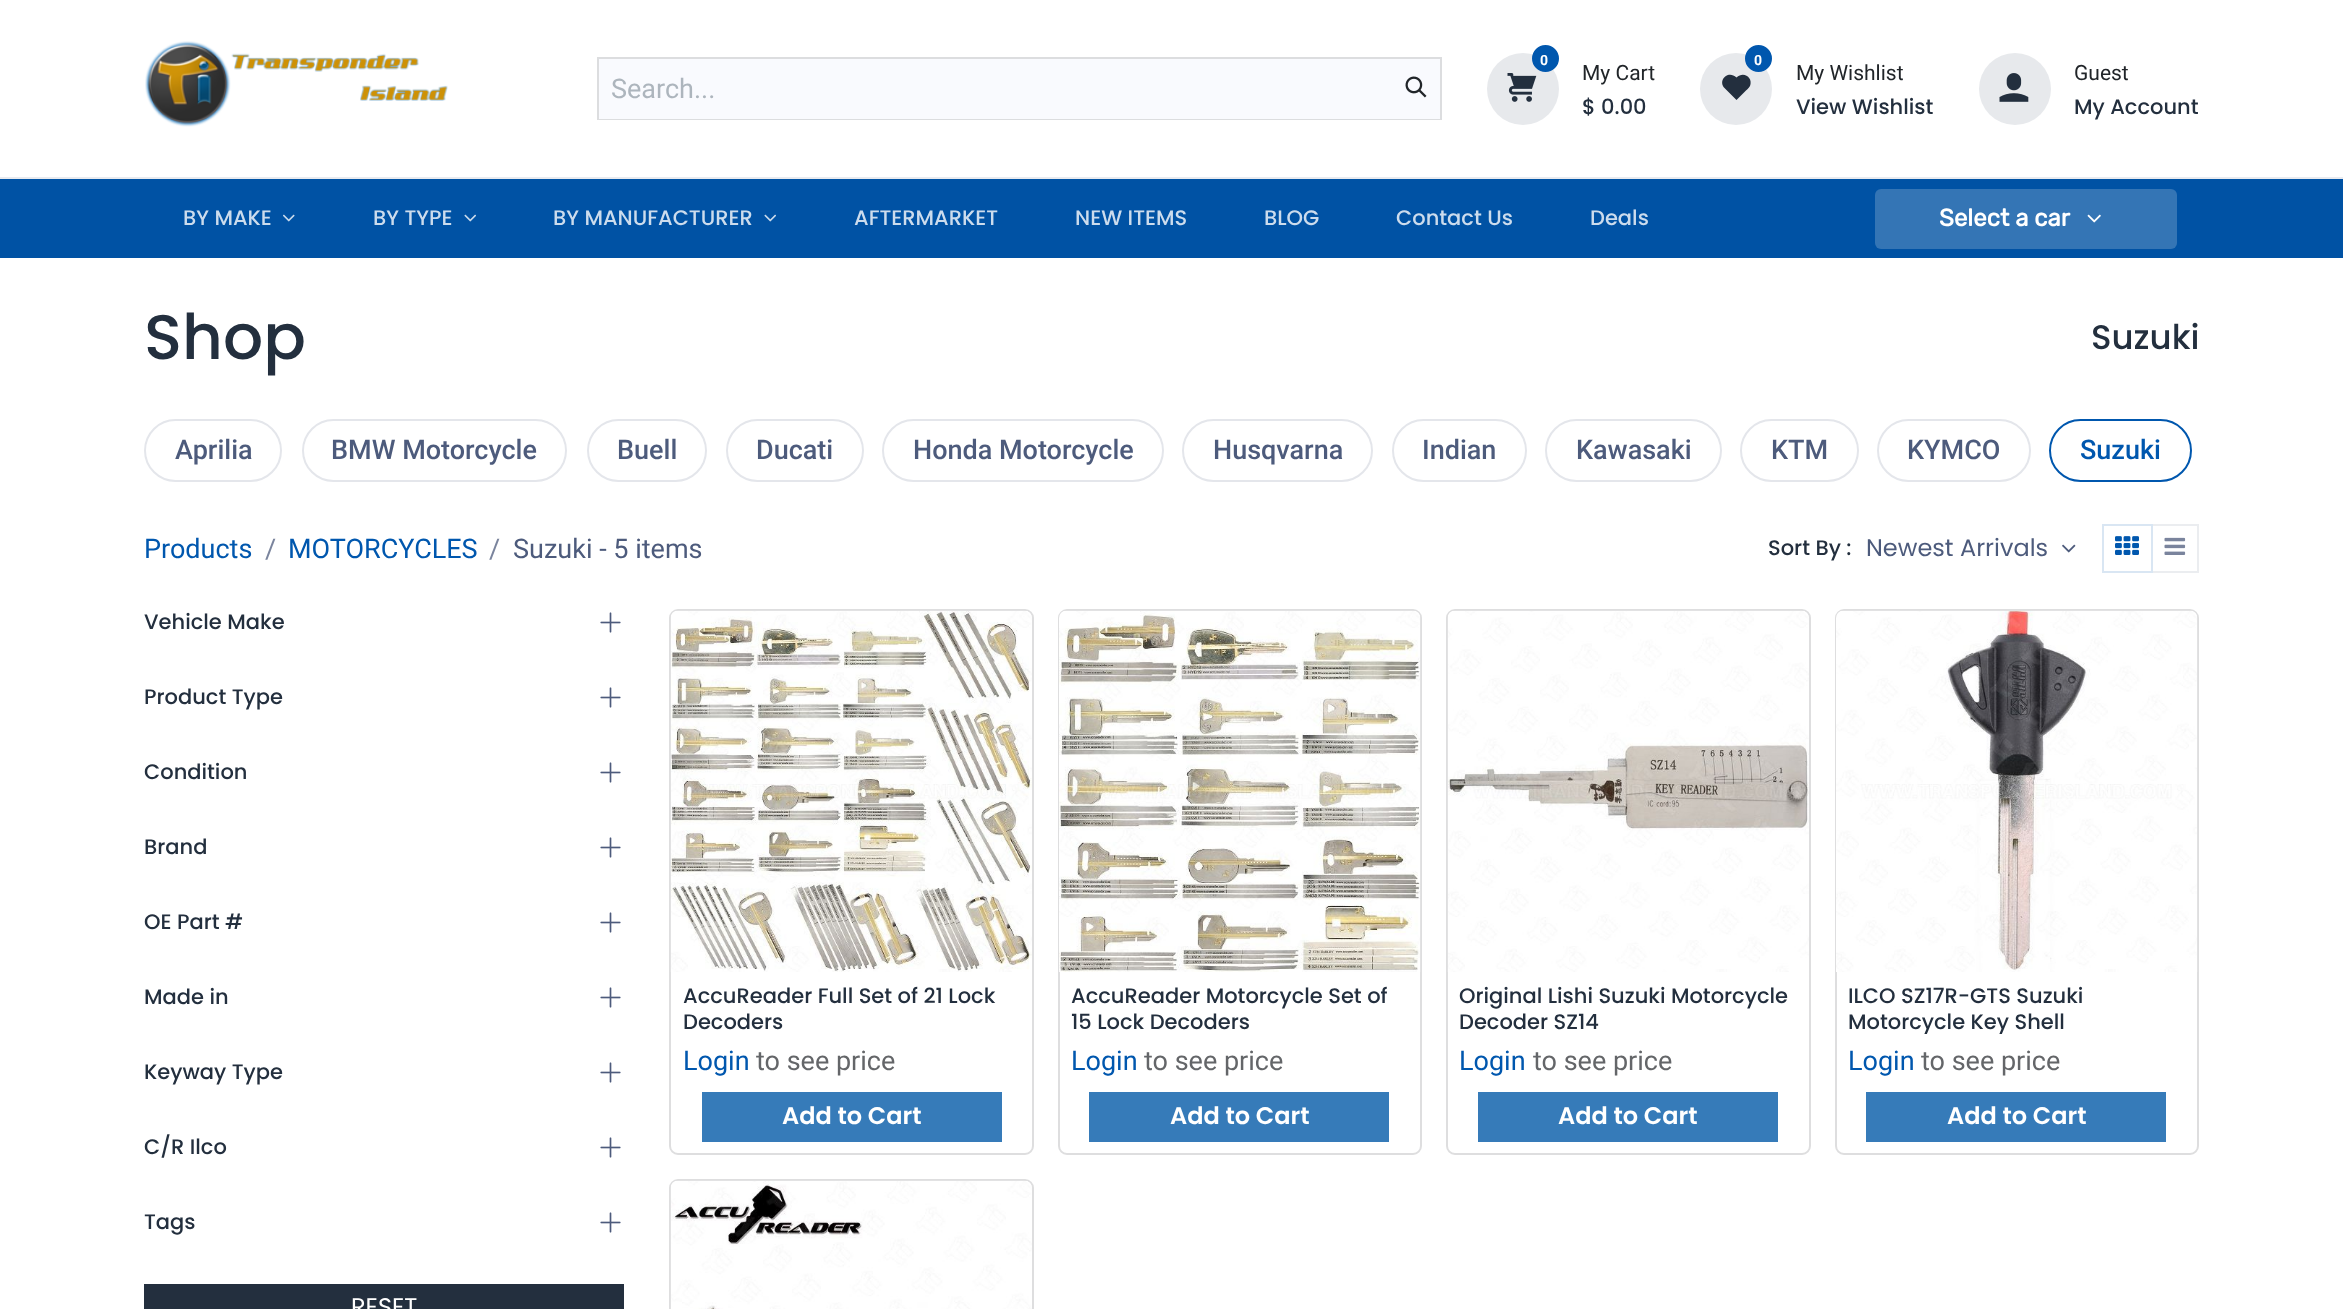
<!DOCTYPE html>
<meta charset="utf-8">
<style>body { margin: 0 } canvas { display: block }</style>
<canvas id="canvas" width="2343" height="1309"></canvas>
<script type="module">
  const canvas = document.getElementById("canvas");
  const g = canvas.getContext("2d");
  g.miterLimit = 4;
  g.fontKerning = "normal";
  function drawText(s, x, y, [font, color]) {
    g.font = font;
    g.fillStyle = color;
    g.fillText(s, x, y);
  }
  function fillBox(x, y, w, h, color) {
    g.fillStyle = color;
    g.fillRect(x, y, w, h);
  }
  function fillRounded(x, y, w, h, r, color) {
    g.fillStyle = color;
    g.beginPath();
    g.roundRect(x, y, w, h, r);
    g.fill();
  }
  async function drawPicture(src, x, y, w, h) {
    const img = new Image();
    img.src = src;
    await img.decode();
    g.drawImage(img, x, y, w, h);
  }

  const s1 = ["27px Roboto", "#ADB5BD"];
  const s2 = ["bold 14px Roboto", "#FFFFFF"];
  const s3 = ["21px Roboto", "#212529"];
  const s4 = ["500 21px Poppins", "#232F3E"];
  const s5 = ["500 21px Poppins", "#CCDCED"];
  const s6 = ["bold 24px Rubik", "#FFFFFF"];
  const s7 = ["500 63px Poppins", "#232F3E"];
  const s8 = ["500 34px Poppins", "#232F3E"];
  const s9 = ["500 27px Roboto", "#4D5B7C"];
  const s10 = ["500 27px Roboto", "#0057AE"];
  const s11 = ["27px Roboto", "#0057AE"];
  const s12 = ["27px Roboto", "#7A849D"];
  const s13 = ["27px Roboto", "#4D5B7C"];
  const s14 = ["24px Poppins", "#4D5B7C"];
  const s15 = ["24px Poppins", "#FFFFFF"];
  const s16 = ["27px Roboto", "#646669"];
  const s17 = ["600 24px Poppins", "#FFFFFF"];

  fillBox(0, 0, 2343, 1309, "#FFFFFF");
  fillBox(0, 177, 2343, 2, "#E8EAEF");
  await drawPicture("pic1.png", 145, 41, 303, 86);
  g.strokeStyle = "#DCDDDF";
  g.lineWidth = 2;
  g.strokeRect(598, 58, 843, 61);
  fillBox(599, 59, 841, 60, "#F9FAFE");
  drawText("Search...", 611, 98, s1);
  await drawPicture("pic2.png", 1405, 76, 22, 22);
  g.fillStyle = "#E7E9EC";
  g.beginPath();
  g.arc(1523, 89, 36, 0, Math.PI * 2);
  g.fill();
  await drawPicture("pic3.png", 1507, 73, 30, 29);
  g.fillStyle = "#0057AE";
  g.beginPath();
  g.arc(1545.5, 58.5, 12.5, 0, Math.PI * 2);
  g.fill();
  g.strokeStyle = "#0057AE";
  g.stroke();
  drawText("0", 1540, 65, s2);
  drawText("My Cart", 1582, 80, s3);
  drawText("$ 0.00", 1582, 114, s4);
  g.fillStyle = "#E7E9EC";
  g.beginPath();
  g.arc(1736, 89, 36, 0, Math.PI * 2);
  g.fill();
  g.fillStyle = "#232F3E";
  g.beginPath();
  g.moveTo(1736.5, 77.5);
  g.bezierCurveTo(1728, 69.5, 1717.5, 80.5, 1724.5, 88);
  g.lineTo(1736.5, 100);
  g.lineTo(1744.5, 92);
  g.bezierCurveTo(1746.5, 90, 1748.5, 88.5, 1750, 86);
  g.bezierCurveTo(1753.5, 77.5, 1743.5, 70.5, 1736.5, 77.5);
  g.closePath();
  g.fill();
  g.fillStyle = "#0057AE";
  g.beginPath();
  g.arc(1758.5, 58.5, 12.5, 0, Math.PI * 2);
  g.fill();
  g.stroke();
  drawText("0", 1754, 65, s2);
  drawText("My Wishlist", 1796, 80, s3);
  drawText("View Wishlist", 1796, 114, s4);
  g.fillStyle = "#E7E9EC";
  g.beginPath();
  g.arc(2015, 89, 36, 0, Math.PI * 2);
  g.fill();
  await drawPicture("pic4.png", 1999, 73, 30, 29);
  drawText("Guest", 2074, 80, s3);
  drawText("My Account", 2074, 114, s4);
  fillBox(0, 179, 2343, 79, "#0052A4");
  drawText("BY MAKE", 183, 225, s5);
  await drawPicture("pic5.png", 283, 214, 12, 8);
  drawText("BY TYPE", 373, 225, s5);
  await drawPicture("pic6.png", 464, 214, 12, 8);
  drawText("BY MANUFACTURER", 553, 225, s5);
  await drawPicture("pic6.png", 764, 214, 12, 8);
  drawText("AFTERMARKET", 854, 225, s5);
  drawText("NEW ITEMS", 1075, 225, s5);
  drawText("BLOG", 1264, 225, s5);
  drawText("Contact Us", 1396, 225, s5);
  drawText("Deals", 1590, 225, s5);
  fillRounded(1875, 189, 302, 60, 6, "#3475B5");
  drawText("Select a car", 1939, 226, s6);
  await drawPicture("pic7.png", 2087, 214, 14, 9);
  drawText("Shop", 144, 359, s7);
  drawText("Suzuki", 2091, 349, s8);
  g.beginPath();
  g.roundRect(145, 420, 136, 61, 30.5);
  g.strokeStyle = "#E4E6EB";
  g.stroke();
  drawText("Aprilia", 175, 459, s9);
  g.beginPath();
  g.roundRect(303, 420, 263, 61, 30.5);
  g.stroke();
  drawText("BMW Motorcycle", 331, 459, s9);
  g.beginPath();
  g.roundRect(588, 420, 118, 61, 30.5);
  g.stroke();
  drawText("Buell", 617, 459, s9);
  g.beginPath();
  g.roundRect(727, 420, 136, 61, 30.5);
  g.stroke();
  drawText("Ducati", 756, 459, s9);
  g.beginPath();
  g.roundRect(883, 420, 280, 61, 30.5);
  g.stroke();
  drawText("Honda Motorcycle", 913, 459, s9);
  g.beginPath();
  g.roundRect(1183, 420, 189, 61, 30.5);
  g.stroke();
  drawText("Husqvarna", 1213, 459, s9);
  g.beginPath();
  g.roundRect(1393, 420, 133, 61, 30.5);
  g.stroke();
  drawText("Indian", 1422, 459, s9);
  g.beginPath();
  g.roundRect(1546, 420, 175, 61, 30.5);
  g.stroke();
  drawText("Kawasaki", 1576, 459, s9);
  g.beginPath();
  g.roundRect(1741, 420, 117, 61, 30.5);
  g.stroke();
  drawText("KTM", 1771, 459, s9);
  g.beginPath();
  g.roundRect(1878, 420, 152, 61, 30.5);
  g.stroke();
  drawText("KYMCO", 1907, 459, s9);
  g.beginPath();
  g.roundRect(2050, 420, 141, 61, 30.5);
  g.strokeStyle = "#0057AE";
  g.stroke();
  drawText("Suzuki", 2080, 459, s10);
  drawText("Products", 144, 558, s11);
  drawText("/", 265, 558, s12);
  drawText("MOTORCYCLES", 288, 558, s11);
  drawText("/", 489, 558, s12);
  drawText("Suzuki - 5 items", 513, 558, s13);
  drawText("Sort By :", 1768, 555, s4);
  drawText("Newest Arrivals", 1866, 556, s14);
  await drawPicture("pic8.png", 2062, 544, 14, 9);
  g.strokeStyle = "#EBEDF0";
  g.strokeRect(2152, 525, 46, 47);
  g.strokeStyle = "#D9E6F3";
  g.strokeRect(2103, 525, 49, 47);
  await drawPicture("pic9.png", 2115, 536, 24, 19);
  await drawPicture("pic10.png", 2164, 537, 22, 18);
  drawText("Vehicle Make", 144, 629, s4);
  await drawPicture("pic11.png", 600, 612, 21, 21);
  drawText("Product Type", 144, 704, s4);
  await drawPicture("pic11.png", 600, 687, 21, 21);
  drawText("Condition", 144, 779, s4);
  await drawPicture("pic11.png", 600, 762, 21, 21);
  drawText("Brand", 144, 854, s4);
  await drawPicture("pic11.png", 600, 837, 21, 21);
  drawText("OE Part #", 144, 929, s4);
  await drawPicture("pic11.png", 600, 912, 21, 21);
  drawText("Made in", 144, 1004, s4);
  await drawPicture("pic11.png", 600, 987, 21, 21);
  drawText("Keyway Type", 144, 1079, s4);
  await drawPicture("pic11.png", 600, 1062, 21, 21);
  drawText("C/R Ilco", 144, 1154, s4);
  await drawPicture("pic11.png", 600, 1137, 21, 21);
  drawText("Tags", 144, 1229, s4);
  await drawPicture("pic11.png", 600, 1212, 21, 21);
  fillBox(144, 1284, 480, 25, "#232F3E");
  drawText("RESET", 351, 1315, s15);
  g.beginPath();
  g.roundRect(670, 610, 363, 544, 8);
  g.strokeStyle = "#DEDEDF";
  g.stroke();
  await drawPicture("pic12.png", 670, 610, 362, 362);
  drawText("AccuReader Full Set of 21 Lock", 683, 1003, s4);
  drawText("Decoders", 683, 1029, s4);
  drawText("Login", 683, 1070, s11);
  drawText("to see price", 756, 1070, s16);
  fillBox(702, 1092, 300, 50, "#367BB9");
  drawText("Add to Cart", 782, 1124, s17);
  g.beginPath();
  g.roundRect(1059, 610, 362, 544, 8);
  g.stroke();
  await drawPicture("pic13.png", 1059, 610, 362, 362);
  drawText("AccuReader Motorcycle Set of", 1071, 1003, s4);
  drawText("15 Lock Decoders", 1071, 1029, s4);
  drawText("Login", 1071, 1070, s11);
  drawText("to see price", 1144, 1070, s16);
  fillBox(1089, 1092, 300, 50, "#367BB9");
  drawText("Add to Cart", 1170, 1124, s17);
  g.beginPath();
  g.roundRect(1447, 610, 363, 544, 8);
  g.stroke();
  await drawPicture("pic14.png", 1447, 610, 362, 362);
  drawText("Original Lishi Suzuki Motorcycle", 1459, 1003, s4);
  drawText("Decoder SZ14", 1459, 1029, s4);
  drawText("Login", 1459, 1070, s11);
  drawText("to see price", 1533, 1070, s16);
  fillBox(1478, 1092, 300, 50, "#367BB9");
  drawText("Add to Cart", 1558, 1124, s17);
  g.beginPath();
  g.roundRect(1836, 610, 362, 544, 8);
  g.stroke();
  await drawPicture("pic15.png", 1836, 610, 362, 362);
  drawText("ILCO SZ17R-GTS Suzuki", 1848, 1003, s4);
  g.save();
  g.beginPath();
  g.rect(1848, 984, 338, 50);
  g.clip();
  drawText("Motorcycle Key Shell", 1848, 1029, s4);
  g.restore();
  drawText("Login", 1848, 1070, s11);
  drawText("to see price", 1921, 1070, s16);
  fillBox(1866, 1092, 300, 50, "#367BB9");
  drawText("Add to Cart", 1947, 1124, s17);
  g.beginPath();
  g.roundRect(670, 1180, 363, 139, 8);
  g.stroke();
  await drawPicture("pic16.png", 670, 1180, 362, 129);
</script>
